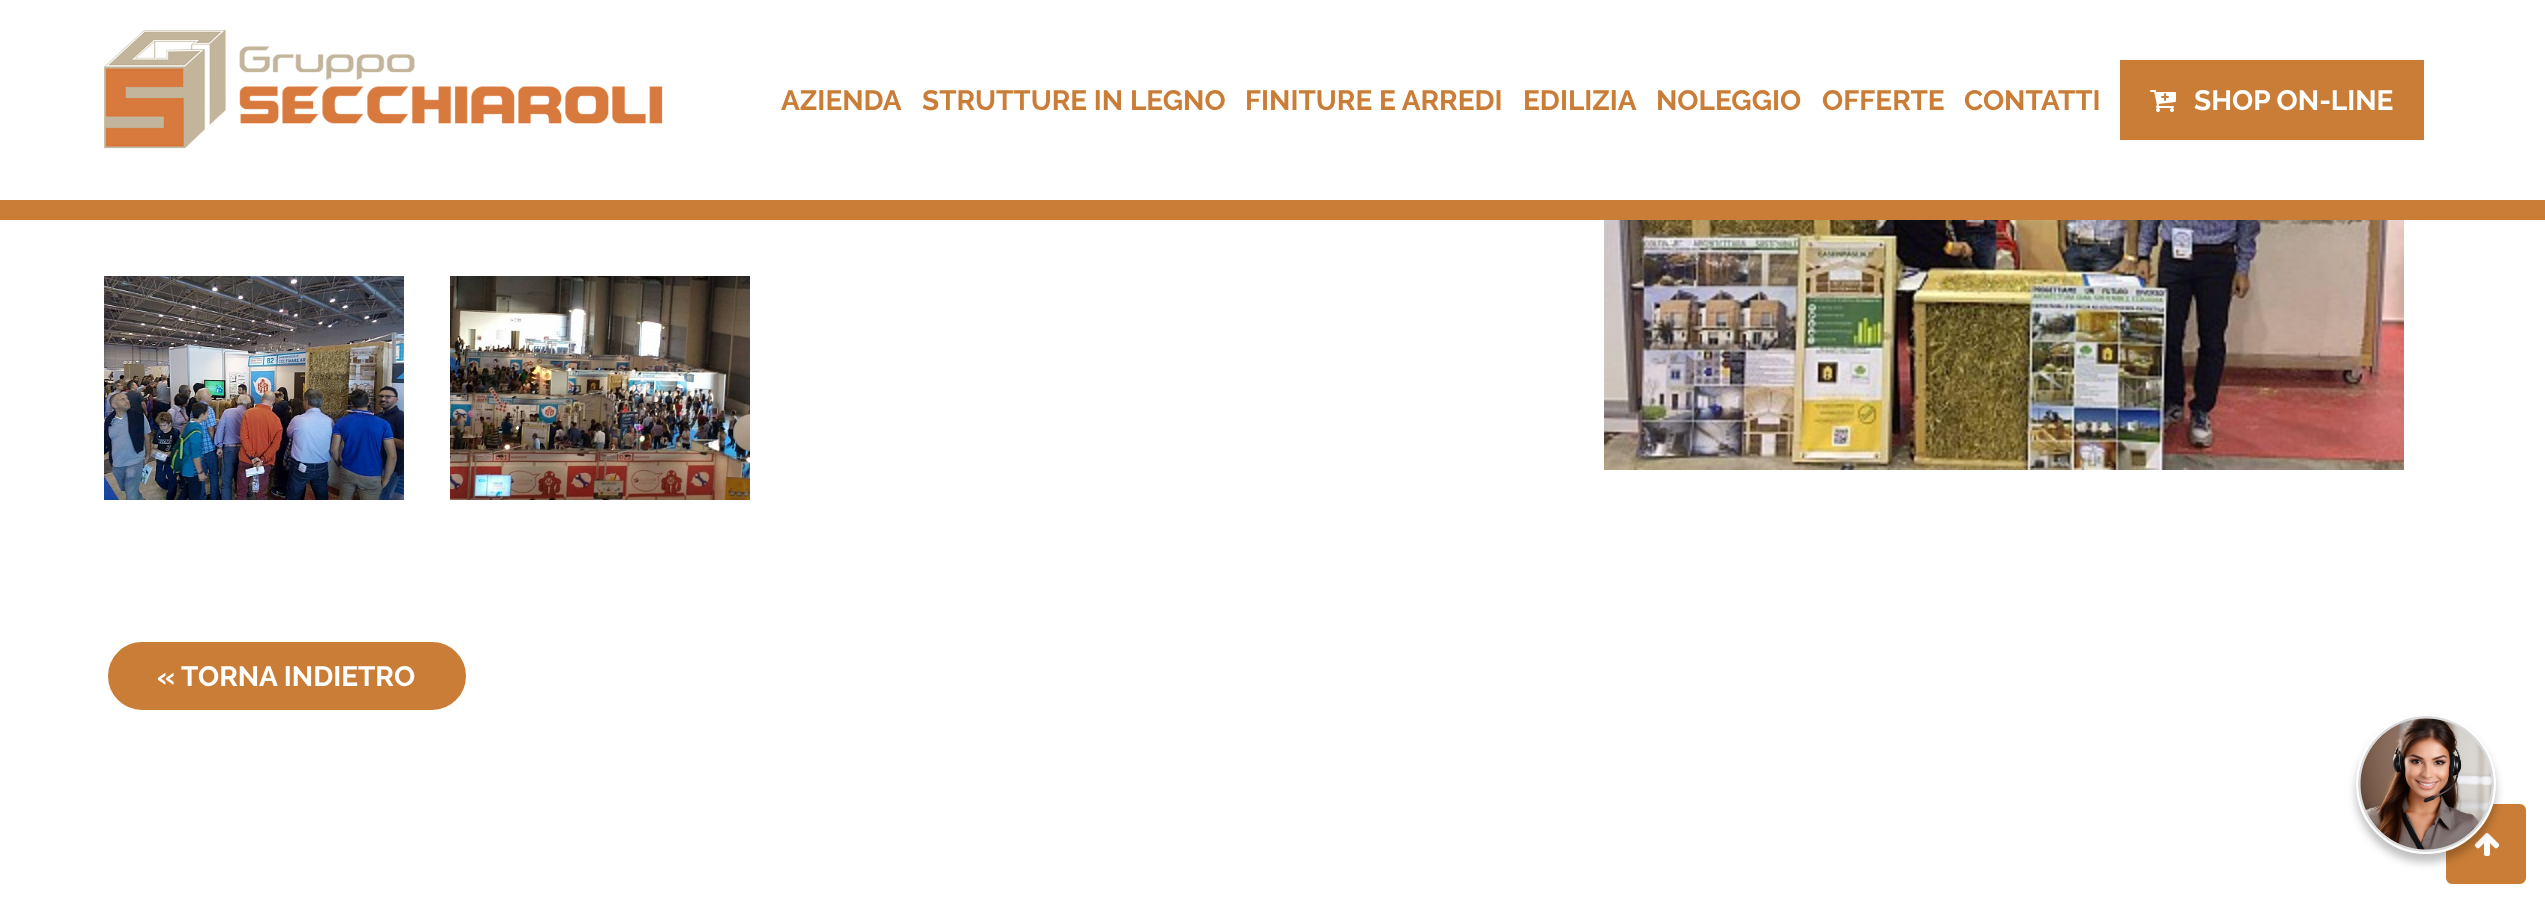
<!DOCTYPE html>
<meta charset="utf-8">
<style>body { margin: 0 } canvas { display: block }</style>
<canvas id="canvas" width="2545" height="903"></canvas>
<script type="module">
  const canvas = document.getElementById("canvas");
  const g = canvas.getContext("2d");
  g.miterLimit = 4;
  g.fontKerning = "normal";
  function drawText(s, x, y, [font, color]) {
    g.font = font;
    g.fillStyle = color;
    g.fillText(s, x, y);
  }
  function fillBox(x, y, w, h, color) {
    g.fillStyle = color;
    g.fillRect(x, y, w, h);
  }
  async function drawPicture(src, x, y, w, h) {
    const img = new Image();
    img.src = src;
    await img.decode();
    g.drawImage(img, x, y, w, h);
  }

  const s1 = ["bold 28px Raleway", "#CA7D37"];
  const s2 = ["bold 28px Raleway", "#FFFFFF"];

  fillBox(0, 0, 2545, 903, "#FFFFFF");
  fillBox(0, 200, 2545, 20, "#CA7D37");
  await drawPicture("pic1.png", 104, 30, 559, 119);
  drawText("AZIENDA", 781, 110, s1);
  drawText("STRUTTURE IN LEGNO", 922, 110, s1);
  drawText("FINITURE E ARREDI", 1245, 110, s1);
  drawText("EDILIZIA", 1523, 110, s1);
  drawText("NOLEGGIO", 1656, 110, s1);
  drawText("OFFERTE", 1822, 110, s1);
  drawText("CONTATTI", 1964, 110, s1);
  fillBox(2120, 60, 304, 80, "#CA7D37");
  await drawPicture("pic2.png", 2150, 90, 26, 22);
  drawText("SHOP ON-LINE", 2194, 110, s2);
  await drawPicture("pic3.png", 104, 276, 300, 224);
  await drawPicture("pic4.png", 450, 276, 300, 224);
  await drawPicture("pic5.png", 1604, 220, 800, 250);
  g.fillStyle = "#CA7D37";
  g.beginPath();
  g.roundRect(106, 640, 362, 72, 36);
  g.fill();
  g.strokeStyle = "#FFFFFF";
  g.lineWidth = 4;
  g.stroke();
  drawText("« TORNA INDIETRO", 157, 686, s2);
  g.fillStyle = "#CA7D37";
  g.beginPath();
  g.roundRect(2447, 805, 78, 78, 5);
  g.fill();
  g.strokeStyle = "#CA7D37";
  g.lineWidth = 2;
  g.stroke();
  await drawPicture("pic7.png", 2474, 833, 26, 23);
  g.fillStyle = "rgba(0, 0, 0, 0.25)";
  g.filter = "blur(4px)";
  g.beginPath();
  g.roundRect(2356, 722, 140, 140, 70);
  g.fill();
  g.filter = "none";
  g.fillStyle = "#FFFFFF";
  g.beginPath();
  g.arc(2426, 784, 69, 0, Math.PI * 2);
  g.fill();
  g.strokeStyle = "#FFFFFF";
  g.stroke();
  await drawPicture("pic6.png", 2358, 716, 136, 136);
</script>
